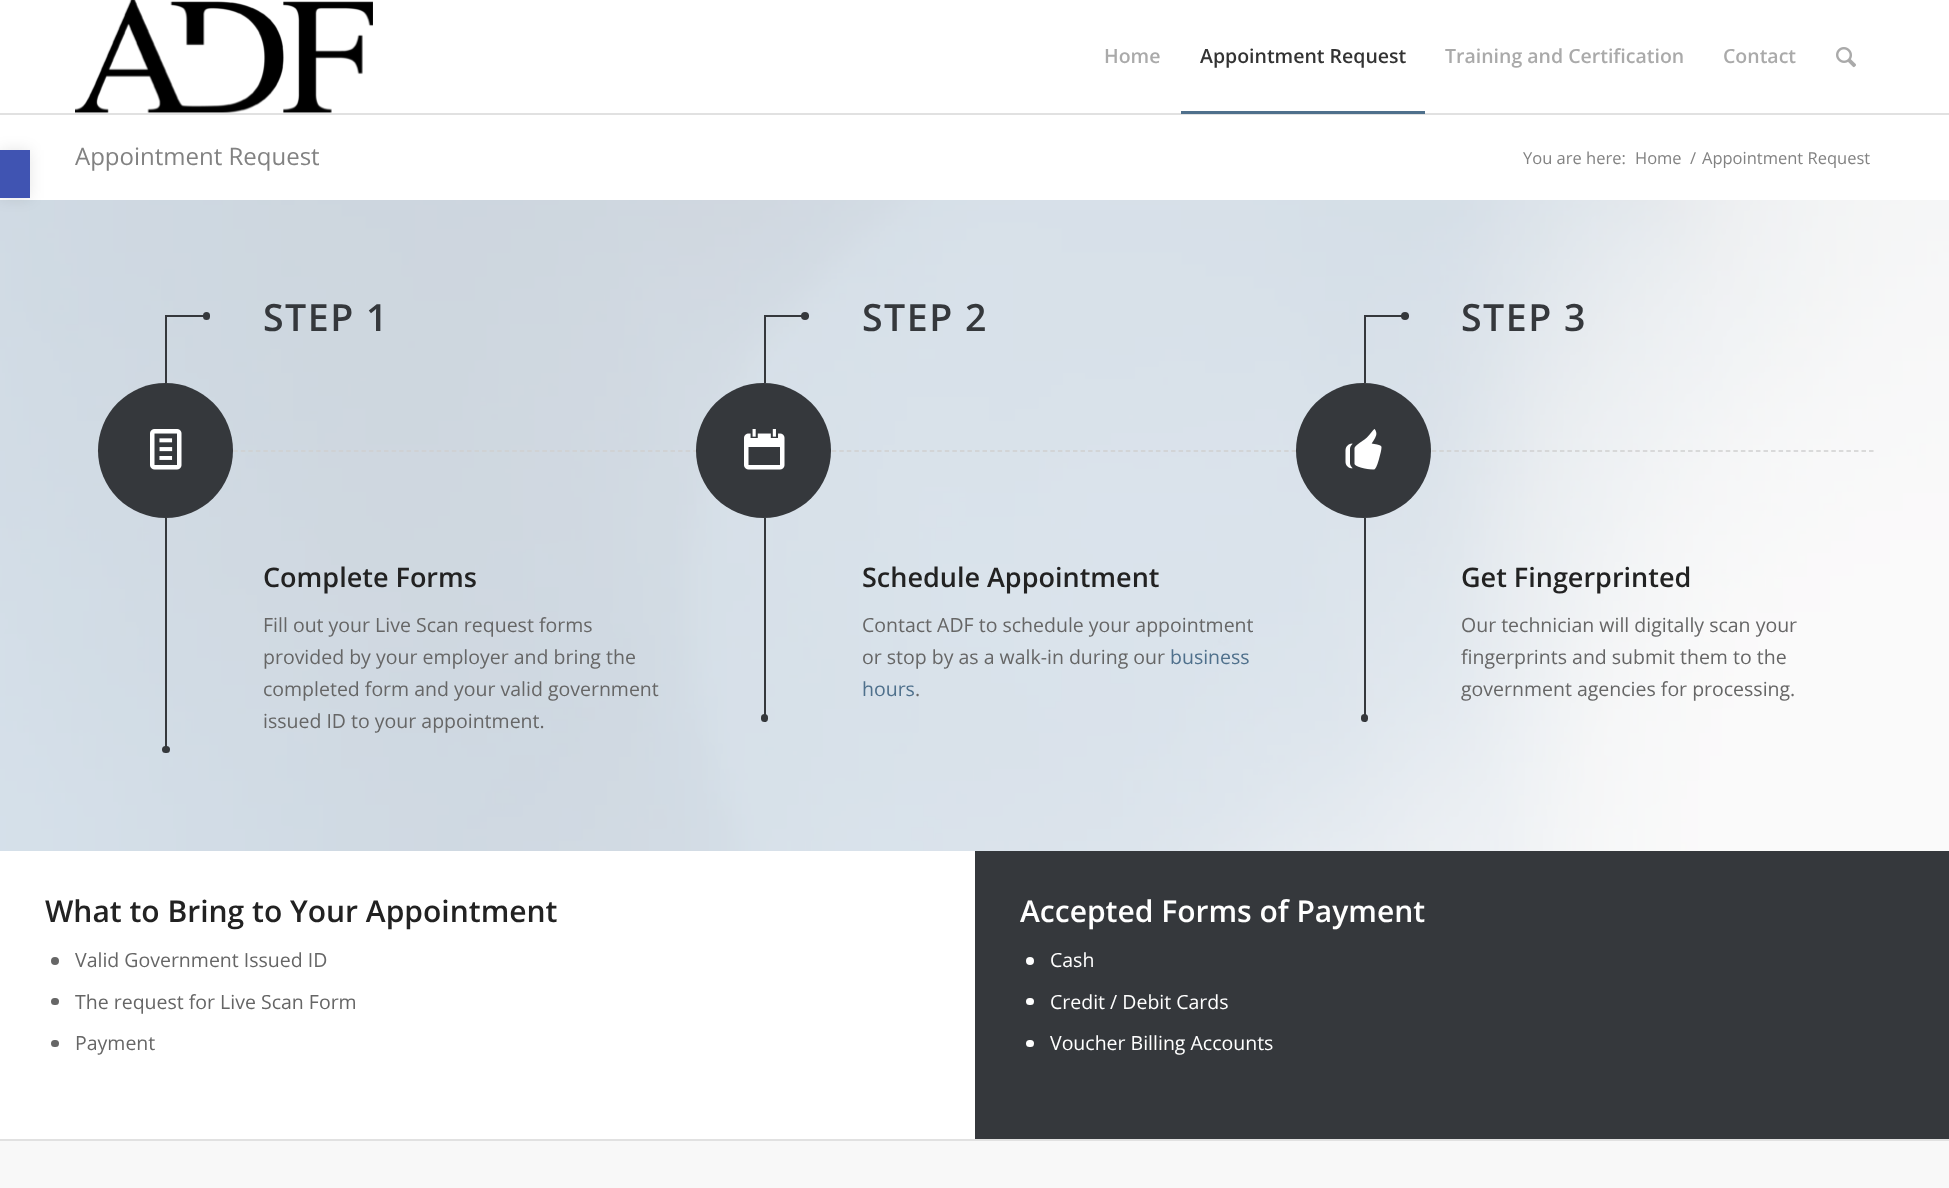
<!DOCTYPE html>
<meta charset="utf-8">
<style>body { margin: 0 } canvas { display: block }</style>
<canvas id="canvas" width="1949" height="1188"></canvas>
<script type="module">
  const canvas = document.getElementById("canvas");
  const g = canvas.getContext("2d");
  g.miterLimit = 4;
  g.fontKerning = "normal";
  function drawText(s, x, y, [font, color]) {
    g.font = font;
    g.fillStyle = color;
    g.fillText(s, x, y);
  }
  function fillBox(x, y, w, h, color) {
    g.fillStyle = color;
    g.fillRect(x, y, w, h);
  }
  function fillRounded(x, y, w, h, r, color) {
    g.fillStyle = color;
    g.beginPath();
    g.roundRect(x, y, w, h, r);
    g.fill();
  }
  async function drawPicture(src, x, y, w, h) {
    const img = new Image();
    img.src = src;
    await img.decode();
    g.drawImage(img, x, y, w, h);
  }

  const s1 = ["600 19.5px Open Sans", "#AAAAAA"];
  const s2 = ["600 19.5px Open Sans", "#333333"];
  const s3 = ["24px Open Sans", "#828282"];
  const s4 = ["16.5px Open Sans", "#828282"];
  const s5 = ["600 37.5px Open Sans", "#35383C"];
  const s6 = ["600 27px Open Sans", "#222222"];
  const s7 = ["19.5px Open Sans", "#666666"];
  const s8 = ["19.5px Open Sans", "#4F708C"];
  const s9 = ["600 30px Open Sans", "#222222"];
  const s10 = ["600 30px Open Sans", "#FFFFFF"];
  const s11 = ["19.5px Open Sans", "#FFFFFF"];

  fillBox(0, 0, 1949, 1188, "#FFFFFF");
  await drawPicture("pic3.png", 0, 200, 1949, 651);
  g.fillStyle = "rgba(0, 0, 0, 0.1)";
  g.filter = "blur(7.5px)";
  g.beginPath();
  g.rect(0, 150, 30, 48);
  g.fill();
  g.filter = "none";
  fillBox(0, 150, 30, 48, "#4054B2");
  fillBox(0, 113, 1949, 2, "#E1E1E1");
  await drawPicture("pic1.png", 75, 0, 298, 113);
  drawText("Home", 1104, 63, s1);
  drawText("Appointment Request", 1200, 63, s2);
  fillBox(1181, 111, 244, 3, "#4F708C");
  drawText("Training and Certification", 1445, 63, s1);
  drawText("Contact", 1723, 63, s1);
  await drawPicture("pic2.png", 1836, 47, 20, 21);
  drawText("Appointment Request", 75, 165, s3);
  drawText("You are here:", 1523, 164, s4);
  drawText("Home", 1635, 164, s4);
  drawText("/", 1690, 164, s4);
  drawText("Appointment Request", 1702, 164, s4);
  fillBox(165, 315, 45, 2, "#35383C");
  fillBox(165, 315, 2, 68, "#35383C");
  fillRounded(203, 312, 7, 8, 3.5, "#35383C");
  g.letterSpacing = "1.5px";
  drawText("STEP 1", 263, 331, s5);
  g.beginPath();
  g.moveTo(97.5, 451);
  g.lineTo(697.5, 451);
  g.strokeStyle = "#D0D0D0";
  g.lineWidth = 1.5;
  g.setLineDash([4.5, 3.04]);
  g.stroke();
  g.beginPath();
  g.arc(165.5, 450.5, 67.5, 0, Math.PI * 2);
  g.fill();
  await drawPicture("pic4.png", 150, 429, 32, 41);
  fillBox(165, 518, 2, 235, "#35383C");
  fillRounded(162, 746, 8, 7, 3.5, "#35383C");
  g.letterSpacing = "0px";
  drawText("Complete Forms", 263, 587, s6);
  drawText("Fill out your Live Scan request forms", 263, 632, s7);
  drawText("provided by your employer and bring the", 263, 664, s7);
  drawText("completed form and your valid government", 263, 696, s7);
  drawText("issued ID to your appointment.", 263, 728, s7);
  fillBox(764, 315, 45, 2, "#35383C");
  fillBox(764, 315, 2, 68, "#35383C");
  g.beginPath();
  g.arc(805, 316, 4, 0, Math.PI * 2);
  g.fill();
  g.letterSpacing = "1.5px";
  drawText("STEP 2", 862, 331, s5);
  g.beginPath();
  g.moveTo(696, 451);
  g.lineTo(1296, 451);
  g.stroke();
  g.beginPath();
  g.arc(763.5, 450.5, 67.5, 0, Math.PI * 2);
  g.fill();
  await drawPicture("pic5.png", 744, 429, 41, 41);
  fillBox(764, 518, 2, 204, "#35383C");
  fillRounded(761, 714, 7, 8, 3.5, "#35383C");
  g.letterSpacing = "0px";
  drawText("Schedule Appointment", 862, 587, s6);
  drawText("Contact ADF to schedule your appointment", 862, 632, s7);
  drawText("or stop by as a walk-in during our", 862, 664, s7);
  drawText("business", 1170, 664, s8);
  drawText("hours", 862, 696, s8);
  drawText(".", 915, 696, s7);
  fillBox(1364, 315, 45, 2, "#35383C");
  fillBox(1364, 315, 2, 68, "#35383C");
  g.beginPath();
  g.arc(1405, 316, 4, 0, Math.PI * 2);
  g.fill();
  g.letterSpacing = "1.5px";
  drawText("STEP 3", 1461, 331, s5);
  g.save();
  g.beginPath();
  g.rect(1296, 383, 579, 135);
  g.clip();
  g.beginPath();
  g.moveTo(1296, 451);
  g.lineTo(1896, 451);
  g.stroke();
  g.restore();
  g.beginPath();
  g.arc(1363.5, 450.5, 67.5, 0, Math.PI * 2);
  g.fill();
  await drawPicture("pic6.png", 1345, 429, 37, 41);
  fillBox(1364, 518, 2, 204, "#35383C");
  fillRounded(1361, 714, 7, 8, 3.5, "#35383C");
  g.letterSpacing = "0px";
  drawText("Get Fingerprinted", 1461, 587, s6);
  drawText("Our technician will digitally scan your", 1461, 632, s7);
  drawText("fingerprints and submit them to the", 1461, 664, s7);
  drawText("government agencies for processing.", 1461, 696, s7);
  drawText("What to Bring to Your Appointment", 45, 922, s9);
  g.fillStyle = "#666666";
  g.beginPath();
  g.arc(55, 961, 4, 0, Math.PI * 2);
  g.fill();
  drawText("Valid Government Issued ID", 75, 967, s7);
  fillRounded(51, 998, 8, 7, 3.5, "#666666");
  drawText("The request for Live Scan Form", 75, 1009, s7);
  fillRounded(51, 1040, 8, 7, 3.5, "#666666");
  drawText("Payment", 75, 1050, s7);
  fillBox(975, 851, 974, 288, "#35383C");
  drawText("Accepted Forms of Payment", 1020, 922, s10);
  g.beginPath();
  g.arc(1030, 961, 4, 0, Math.PI * 2);
  g.fill();
  drawText("Cash", 1050, 967, s11);
  fillRounded(1026, 998, 8, 7, 3.5, "#FFFFFF");
  drawText("Credit / Debit Cards", 1050, 1009, s11);
  fillRounded(1026, 1040, 8, 7, 3.5, "#FFFFFF");
  drawText("Voucher Billing Accounts", 1050, 1050, s11);
  fillBox(0, 1141, 1949, 47, "#F8F8F8");
  fillBox(0, 1139, 1949, 2, "#E1E1E1");
</script>
